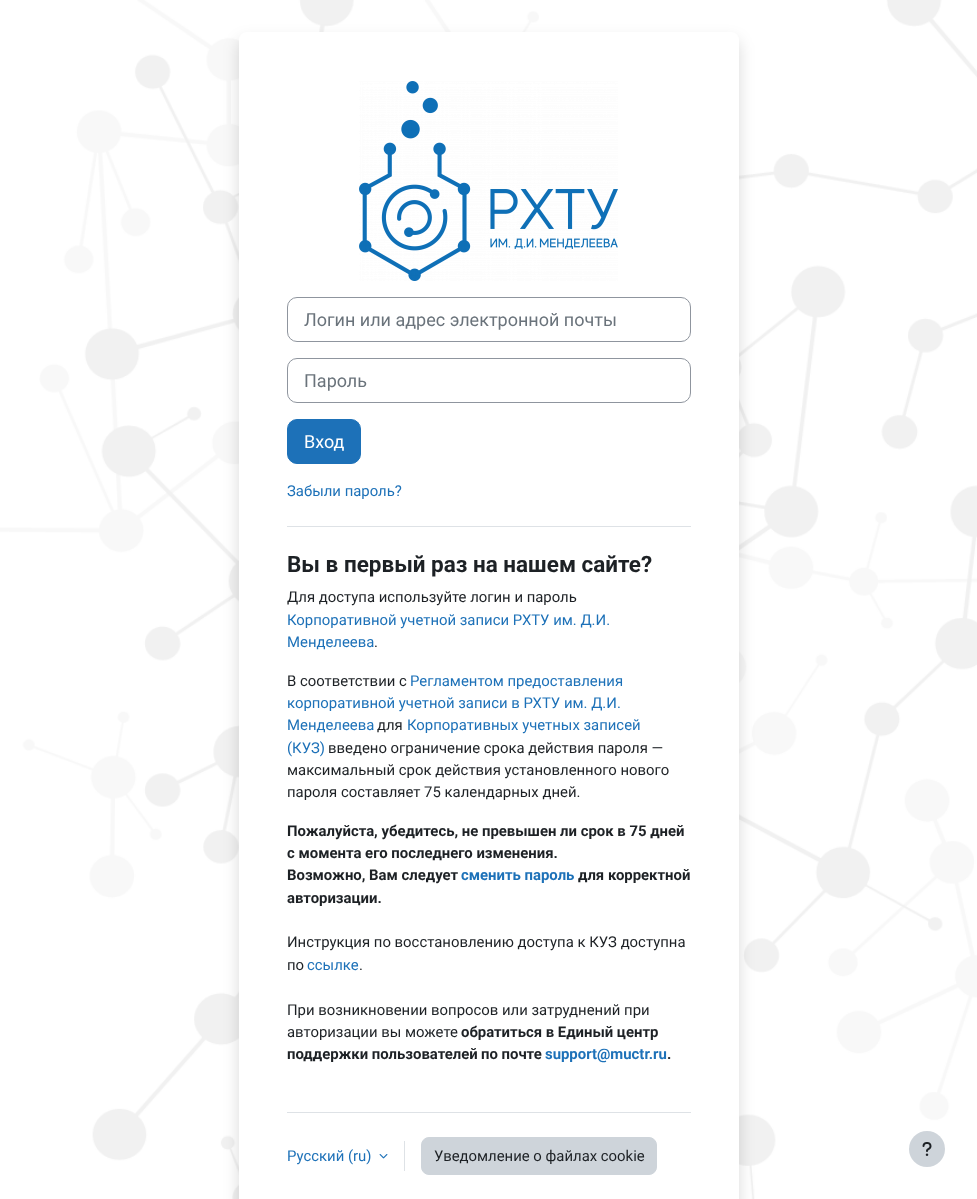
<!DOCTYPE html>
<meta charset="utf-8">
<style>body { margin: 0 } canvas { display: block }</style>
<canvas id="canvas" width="977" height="1199"></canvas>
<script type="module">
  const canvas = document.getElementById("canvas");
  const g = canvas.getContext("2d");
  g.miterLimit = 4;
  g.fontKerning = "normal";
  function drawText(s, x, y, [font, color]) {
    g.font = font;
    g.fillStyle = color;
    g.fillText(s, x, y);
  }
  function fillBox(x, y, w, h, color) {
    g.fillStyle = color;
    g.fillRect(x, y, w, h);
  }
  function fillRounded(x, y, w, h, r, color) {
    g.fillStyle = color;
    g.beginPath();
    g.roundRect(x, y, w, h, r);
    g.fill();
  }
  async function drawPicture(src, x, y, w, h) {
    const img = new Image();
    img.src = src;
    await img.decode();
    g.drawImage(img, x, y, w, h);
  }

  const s1 = ["18px Roboto", "#6A737B"];
  const s2 = ["18px Roboto", "#FFFFFF"];
  const s3 = ["14.9px Roboto", "#1D71B8"];
  const s4 = ["bold 22.5px Roboto", "#1D2125"];
  const s5 = ["14.9px Roboto", "#1D2125"];
  const s6 = ["bold 14.9px Roboto", "#1D2125"];
  const s7 = ["bold 14.9px Roboto", "#1D71B8"];

  fillBox(0, 0, 977, 1199, "#FFFFFF");
  await drawPicture("pic1.png", 0, 0, 977, 1199);
  g.fillStyle = "rgba(0, 0, 0, 0.15)";
  g.filter = "blur(8px)";
  g.beginPath();
  g.roundRect(239, 40, 500, 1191, 8);
  g.fill();
  g.filter = "none";
  fillRounded(239, 32, 500, 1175, 8, "#FFFFFF");
  await drawPicture("pic2.png", 359, 81, 259, 200);
  g.beginPath();
  g.roundRect(287.5, 297.5, 403, 44, 9.5);
  g.strokeStyle = "#8F959E";
  g.stroke();
  drawText("Логин или адрес электронной почты", 304, 326, s1);
  g.beginPath();
  g.roundRect(287.5, 358.5, 403, 44, 9.5);
  g.stroke();
  drawText("Пароль", 304, 387, s1);
  g.fillStyle = "#1D71B8";
  g.beginPath();
  g.roundRect(287.5, 419.5, 73, 44, 9.5);
  g.fill();
  g.strokeStyle = "#1D71B8";
  g.stroke();
  drawText("Вход", 304, 448, s2);
  drawText("Забыли пароль?", 287, 496, s3);
  fillBox(287, 526, 404, 1, "#DEE2E6");
  drawText("Вы в первый раз на нашем сайте?", 287, 572, s4);
  drawText("Для доступа используйте логин и пароль", 287, 602, s5);
  drawText("Корпоративной учетной записи РХТУ им. Д.И.", 287, 625, s3);
  drawText("Менделеева", 287, 647, s3);
  drawText(".", 374, 647, s5);
  drawText("В соответствии с", 287, 686, s5);
  drawText("Регламентом предоставления", 410, 686, s3);
  drawText("корпоративной учетной записи в РХТУ им. Д.И.", 287, 708, s3);
  drawText("Менделеева", 287, 730, s3);
  drawText("для", 377, 730, s5);
  drawText("Корпоративных учетных записей", 407, 730, s3);
  drawText("(КУЗ)", 287, 753, s3);
  drawText("введено ограничение срока действия пароля —", 328, 753, s5);
  drawText("максимальный срок действия установленного нового", 287, 775, s5);
  drawText("пароля составляет 75 календарных дней.", 287, 797, s5);
  drawText("Пожалуйста, убедитесь, не превышен ли срок в 75 дней", 287, 836, s6);
  drawText("с момента его последнего изменения.", 287, 858, s6);
  drawText("Возможно, Вам следует", 287, 880, s6);
  drawText("сменить пароль", 461, 880, s7);
  drawText("для корректной", 578, 880, s6);
  drawText("авторизации.", 287, 903, s6);
  drawText("Инструкция по восстановлению доступа к КУЗ доступна", 287, 947, s5);
  drawText("по", 287, 970, s5);
  drawText("ссылке", 307, 970, s3);
  drawText(".", 359, 970, s5);
  drawText("При возникновении вопросов или затруднений при", 287, 1015, s5);
  drawText("авторизации вы можете", 287, 1037, s5);
  drawText("обратиться в Единый центр", 461, 1037, s6);
  drawText("поддержки пользователей", 287, 1059, s6);
  drawText("по почте", 481, 1059, s6);
  drawText("support@muctr.ru", 545, 1059, s7);
  drawText(".", 667, 1059, s6);
  fillBox(287, 1112, 404, 1, "#DEE2E6");
  drawText("Русский (ru)", 287, 1161, s3);
  await drawPicture("pic3.png", 379, 1154, 9, 5);
  fillBox(404, 1141, 1, 30, "#DEE2E6");
  g.fillStyle = "#CED4DA";
  g.beginPath();
  g.roundRect(421.5, 1137.5, 235, 37, 7.5);
  g.fill();
  g.strokeStyle = "#CED4DA";
  g.stroke();
  drawText("Уведомление о файлах cookie", 434, 1161, s5);
  g.fillStyle = "#CED4DA";
  g.beginPath();
  g.arc(927, 1149, 18, 0, Math.PI * 2);
  g.fill();
  await drawPicture("pic4.png", 922, 1142, 10, 14);
</script>
